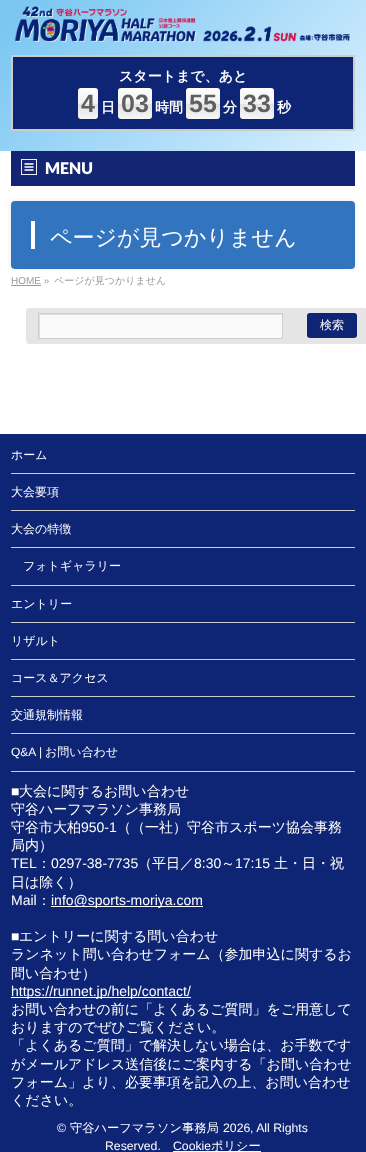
<!DOCTYPE html>
<meta charset="utf-8">
<style>body { margin: 0 } canvas { display: block }</style>
<canvas id="canvas" width="366" height="1152"></canvas>
<script type="module">
  const canvas = document.getElementById("canvas");
  const g = canvas.getContext("2d");
  g.miterLimit = 4;
  g.fontKerning = "normal";
  function drawText(s, x, y, [font, color]) {
    g.font = font;
    g.fillStyle = color;
    g.fillText(s, x, y);
  }
  function fillBox(x, y, w, h, color) {
    g.fillStyle = color;
    g.fillRect(x, y, w, h);
  }
  function fillRounded(x, y, w, h, r, color) {
    g.fillStyle = color;
    g.beginPath();
    g.roundRect(x, y, w, h, r);
    g.fill();
  }
  async function drawPicture(src, x, y, w, h) {
    const img = new Image();
    img.src = src;
    await img.decode();
    g.drawImage(img, x, y, w, h);
  }
  let gradient;

  const s1 = ["bold 14px WenQuanYi Zen Hei", "#FFFFFF"];
  const s2 = ["bold 25px Liberation Sans", "#5F5F5F"];
  const s3 = ["900 16px Lato", "#FFFFFF"];
  const s4 = ["500 22px WenQuanYi Zen Hei", "#FFFFFF"];
  const s5 = ["10px Liberation Sans", "#999999"];
  const s6 = ["500 10px WenQuanYi Zen Hei", "#999999"];
  const s7 = ["500 12px WenQuanYi Zen Hei", "#FFFFFF"];
  const s8 = ["12px Liberation Sans", "#FFFFFF"];
  const s9 = ["14px Liberation Sans", "#FFFFFF"];
  const s10 = ["500 14px WenQuanYi Zen Hei", "#FFFFFF"];
  const s11 = ["12.25px Liberation Sans", "#FFFFFF"];
  const s12 = ["500 12.25px WenQuanYi Zen Hei", "#FFFFFF"];

  fillBox(0, 0, 366, 1152, "#FFFFFF");
  gradient = g.createLinearGradient(49, -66, 317, 201);
  gradient.addColorStop(0.1, "#7BC7F2");
  gradient.addColorStop(1, "#DBF0FF");
  g.fillStyle = gradient;
  g.fillRect(0, 0, 366, 151);
  await drawPicture("pic1.png", 15, 6, 335, 37);
  g.fillStyle = "#0E2474";
  g.beginPath();
  g.rect(12, 56, 342, 74);
  g.fill();
  g.strokeStyle = "#CCCCCC";
  g.lineWidth = 2;
  g.stroke();
  drawText("スタートまで、あと", 119, 81, s1);
  gradient = g.createLinearGradient(88, 88, 88, 119);
  gradient.addColorStop(0, "#FFFFFF");
  gradient.addColorStop(0.5, "#F1F1F1");
  gradient.addColorStop(0.51, "#E1E1E1");
  gradient.addColorStop(1, "#F6F6F6");
  g.fillStyle = gradient;
  g.beginPath();
  g.roundRect(78, 88, 20, 31, 3);
  g.fill();
  drawText("4", 81, 112, s2);
  drawText("日", 101, 112, s1);
  gradient = g.createLinearGradient(135, 88, 135, 119);
  gradient.addColorStop(0, "#FFFFFF");
  gradient.addColorStop(0.5, "#F1F1F1");
  gradient.addColorStop(0.51, "#E1E1E1");
  gradient.addColorStop(1, "#F6F6F6");
  g.fillStyle = gradient;
  g.beginPath();
  g.roundRect(118, 88, 34, 31, 3);
  g.fill();
  drawText("03", 121, 112, s2);
  drawText("時間", 155, 112, s1);
  gradient = g.createLinearGradient(203, 88, 203, 119);
  gradient.addColorStop(0, "#FFFFFF");
  gradient.addColorStop(0.5, "#F1F1F1");
  gradient.addColorStop(0.51, "#E1E1E1");
  gradient.addColorStop(1, "#F6F6F6");
  g.fillStyle = gradient;
  g.beginPath();
  g.roundRect(186, 88, 34, 31, 3);
  g.fill();
  drawText("55", 189, 112, s2);
  drawText("分", 223, 112, s1);
  gradient = g.createLinearGradient(257, 88, 257, 119);
  gradient.addColorStop(0, "#FFFFFF");
  gradient.addColorStop(0.5, "#F1F1F1");
  gradient.addColorStop(0.51, "#E1E1E1");
  gradient.addColorStop(1, "#F6F6F6");
  g.fillStyle = gradient;
  g.beginPath();
  g.roundRect(240, 88, 34, 31, 3);
  g.fill();
  drawText("33", 243, 112, s2);
  drawText("秒", 277, 112, s1);
  fillBox(11, 151, 344, 35, "#142673");
  await drawPicture("pic2.png", 21, 159, 16, 16);
  drawText("MENU", 45, 174, s3);
  g.fillStyle = "rgba(0, 0, 0, 0.1)";
  g.filter = "blur(2px)";
  g.beginPath();
  g.roundRect(11, 201, 344, 68, 4);
  g.fill();
  g.filter = "none";
  fillRounded(11, 201, 344, 68, 4, "#3374BE");
  fillBox(31, 221, 4, 28, "#FFFFFF");
  drawText("ページが見つかりません", 50, 245, s4);
  drawText("HOME »", 11, 284, s5);
  fillBox(11, 285, 30, 1, "#999999");
  drawText("ページが見つかりません", 54, 284, s6);
  fillRounded(26, 308, 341, 36, 3, "#E5E5E5");
  fillBox(40, 315, 242, 23, "#F9F9F9");
  g.save();
  g.beginPath();
  g.rect(39, 314, 243, 24);
  g.clip();
  g.fillStyle = "#E0E0E0";
  g.beginPath();
  g.moveTo(29, 308);
  g.bezierCurveTo(27, 308, 26, 309, 26, 311);
  g.lineTo(26, 341);
  g.bezierCurveTo(26, 343, 27, 344, 29, 344);
  g.lineTo(364, 344);
  g.bezierCurveTo(366, 344, 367, 343, 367, 341);
  g.lineTo(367, 311);
  g.bezierCurveTo(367, 309, 366, 308, 364, 308);
  g.closePath();
  g.moveTo(40, 315);
  g.lineTo(40, 339);
  g.lineTo(283, 339);
  g.lineTo(283, 315);
  g.closePath();
  g.fill("evenodd");
  g.restore();
  g.lineWidth = 1;
  g.strokeRect(38.5, 313.5, 244, 25);
  fillRounded(307, 313, 50, 25, 3, "#0E2474");
  drawText("検索", 320, 329, s7);
  fillBox(0, 434, 366, 718, "#0E2474");
  fillBox(11, 473, 344, 1, "#CCCCCC");
  drawText("ホーム", 11, 459, s7);
  fillBox(11, 510, 344, 1, "#CCCCCC");
  drawText("大会要項", 11, 496, s7);
  fillBox(11, 547, 344, 1, "#CCCCCC");
  drawText("大会の特徴", 11, 533, s7);
  fillBox(11, 585, 344, 1, "#CCCCCC");
  drawText("フォトギャラリー", 23, 570, s7);
  fillBox(11, 622, 344, 1, "#CCCCCC");
  drawText("エントリー", 11, 608, s7);
  fillBox(11, 659, 344, 1, "#CCCCCC");
  drawText("リザルト", 11, 645, s7);
  fillBox(11, 696, 344, 1, "#CCCCCC");
  drawText("コース＆アクセス", 11, 682, s7);
  fillBox(11, 733, 344, 1, "#CCCCCC");
  drawText("交通規制情報", 11, 719, s7);
  fillBox(11, 771, 344, 1, "#CCCCCC");
  drawText("Q&A |", 11, 756, s8);
  drawText("お問い合わせ", 45, 756, s7);
  drawText("■", 11, 796, s9);
  drawText("大会に関するお問い合わせ", 19, 796, s10);
  drawText("守谷ハーフマラソン事務局", 11, 814, s10);
  drawText("守谷市大柏", 11, 832, s10);
  drawText("950-1", 81, 832, s9);
  drawText("（（一社）守谷市スポーツ協会事務", 117, 832, s10);
  drawText("局内）", 11, 850, s10);
  drawText("TEL", 11, 868, s9);
  drawText("：", 37, 868, s10);
  drawText("0297-38-7735", 51, 868, s9);
  drawText("（平日／", 138, 868, s10);
  drawText("8:30", 194, 868, s9);
  drawText("～", 221, 868, s10);
  drawText("17:15", 235, 868, s9);
  drawText("土・日・祝", 274, 868, s10);
  drawText("日は除く）", 11, 887, s10);
  drawText("Mail", 11, 905, s9);
  drawText("：", 37, 905, s10);
  fillBox(51, 906, 152, 1, "#FFFFFF");
  drawText("info@sports-moriya.com", 51, 905, s9);
  drawText("■", 11, 941, s9);
  drawText("エントリーに関する問い合わせ", 19, 941, s10);
  drawText("ランネット問い合わせフォーム（参加申込に関するお", 11, 959, s10);
  drawText("問い合わせ）", 11, 978, s10);
  fillBox(11, 997, 180, 1, "#FFFFFF");
  drawText("https://runnet.jp/help/contact/", 11, 996, s9);
  drawText("お問い合わせの前に「よくあるご質問」をご用意して", 11, 1014, s10);
  drawText("おりますのでぜひご覧ください。", 11, 1032, s10);
  drawText("「よくあるご質問」で解決しない場合は、お手数です", 11, 1050, s10);
  drawText("がメールアドレス送信後にご案内する「お問い合わせ", 11, 1069, s10);
  drawText("フォーム」より、必要事項を記入の上、お問い合わせ", 11, 1087, s10);
  drawText("ください。", 11, 1105, s10);
  drawText("©", 57, 1132, s11);
  drawText("守谷ハーフマラソン事務局", 70, 1132, s12);
  drawText("2026", 223, 1132, s11);
  drawText(", All Rights", 250, 1132, s11);
  drawText("Reserved.", 105, 1150, s11);
  drawText("Cookie", 173, 1150, s11);
  fillBox(173, 1151, 88, 1, "#FFFFFF");
  drawText("ポリシー", 211, 1150, s12);
</script>
